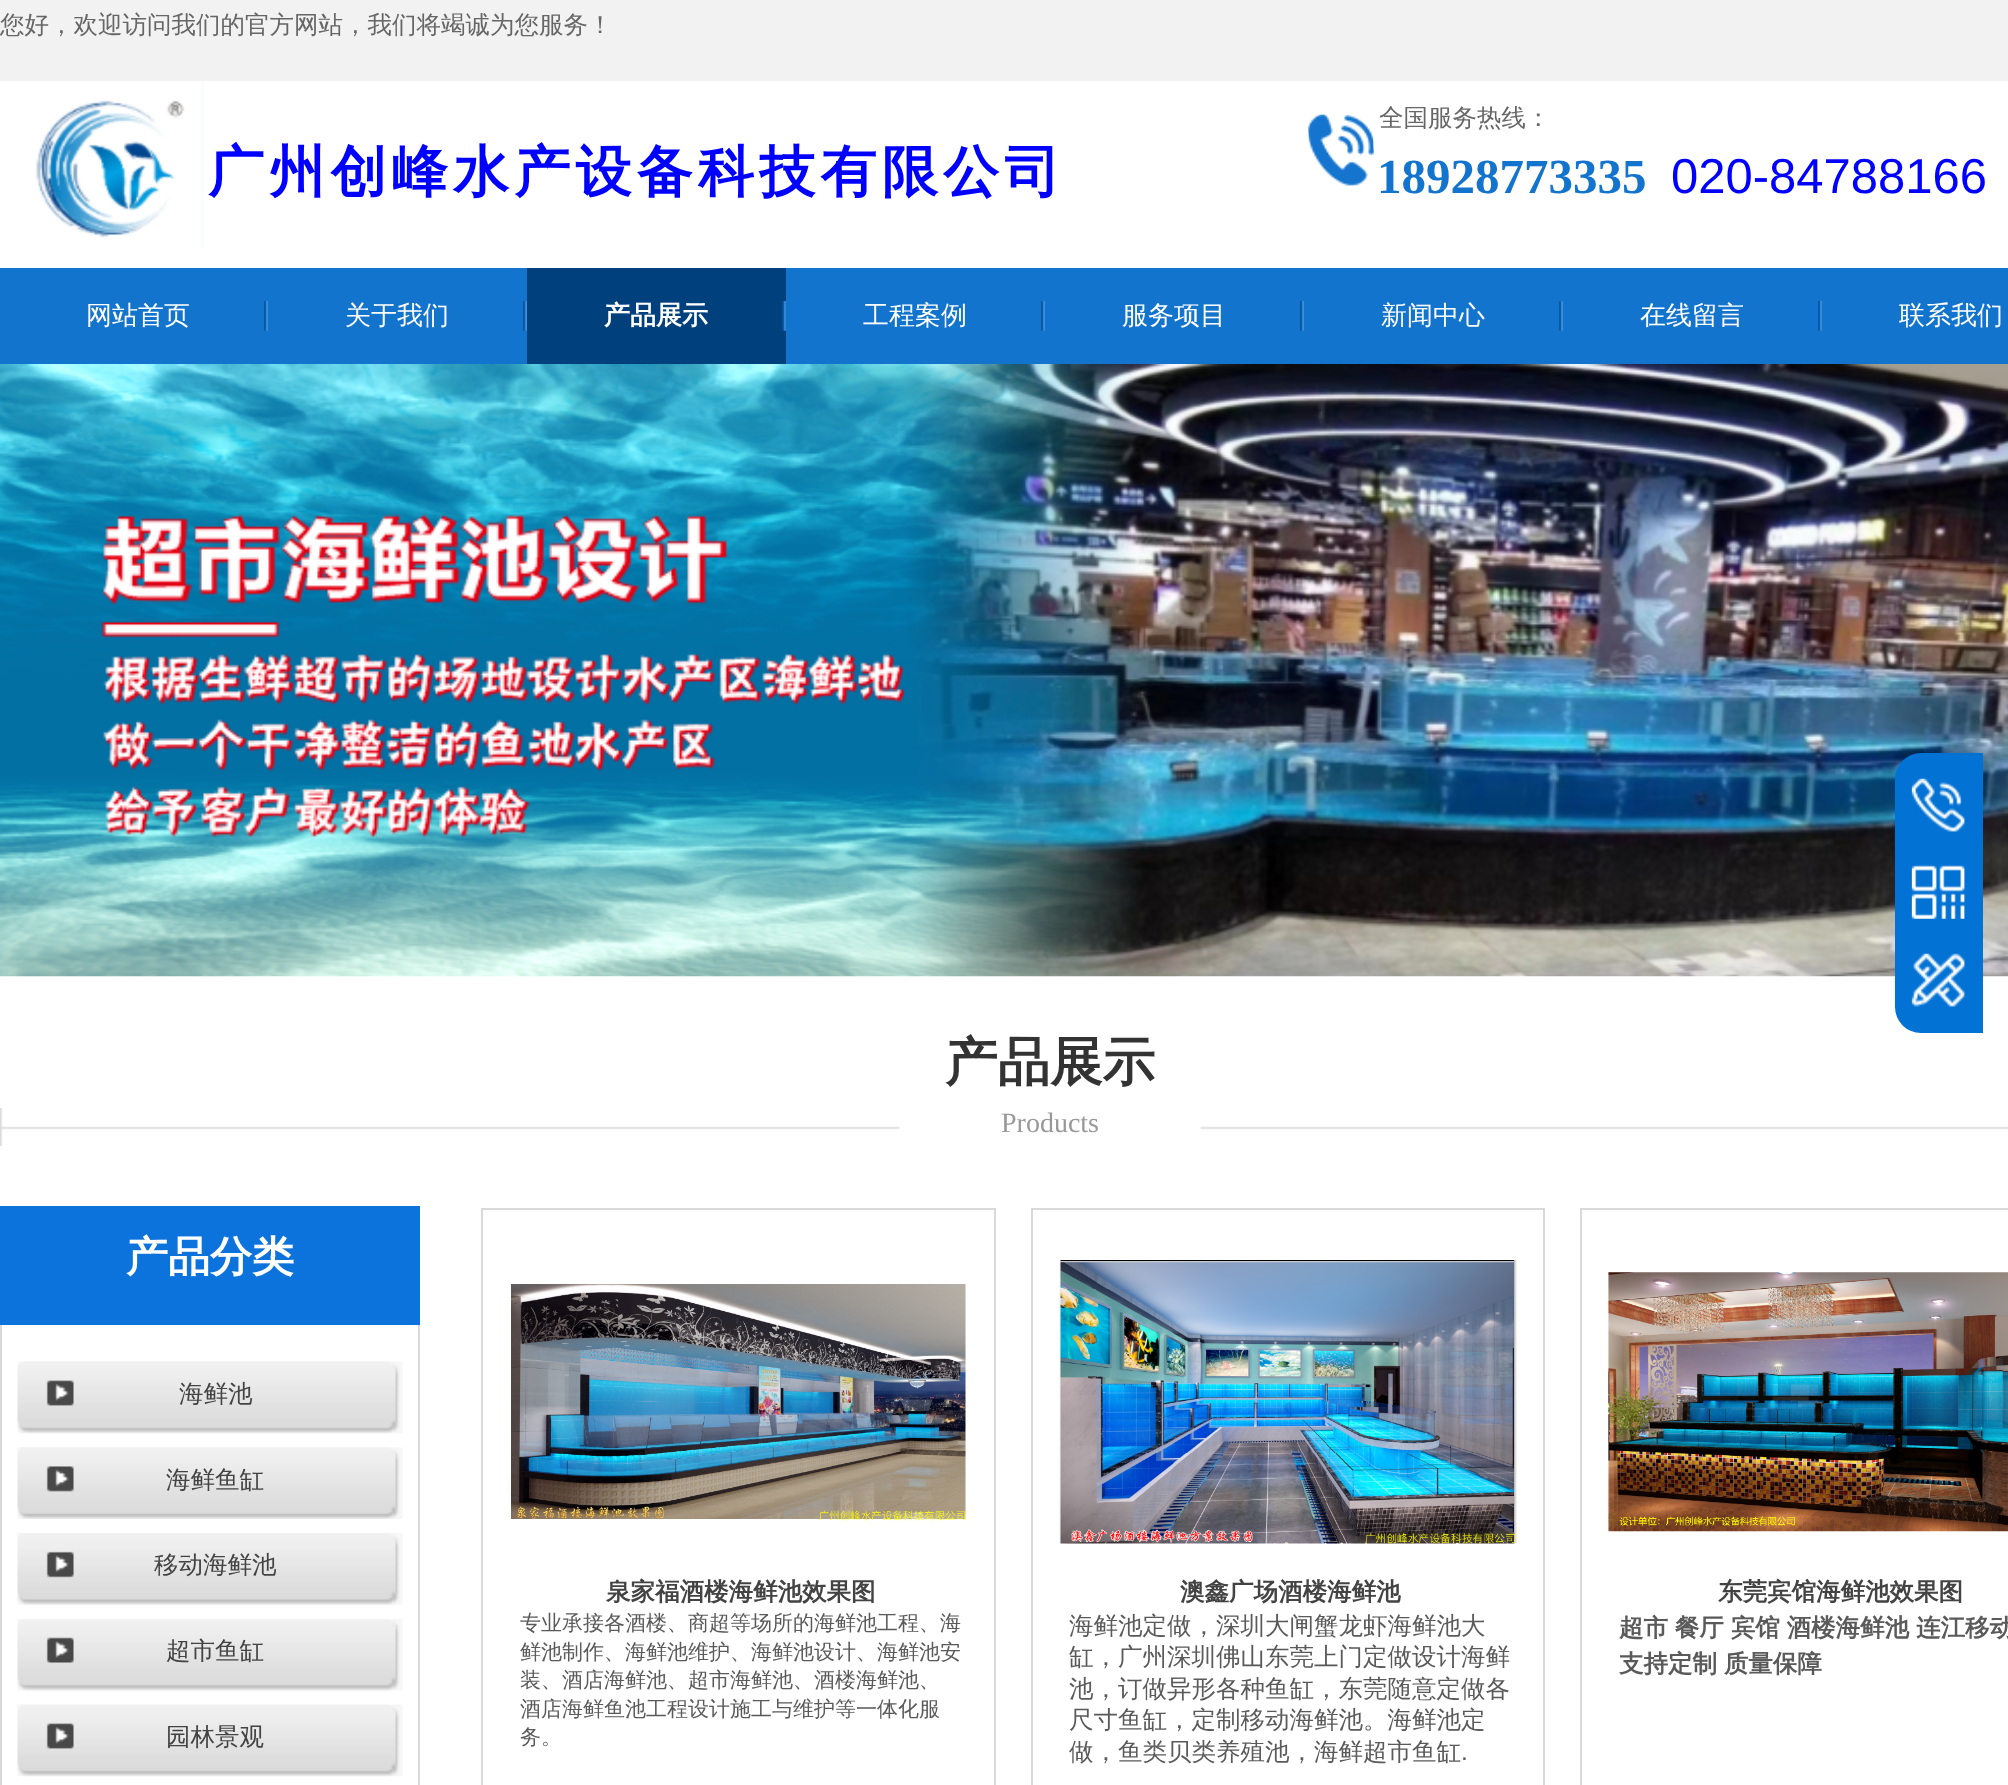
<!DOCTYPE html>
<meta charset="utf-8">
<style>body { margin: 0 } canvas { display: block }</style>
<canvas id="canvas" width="2008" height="1785"></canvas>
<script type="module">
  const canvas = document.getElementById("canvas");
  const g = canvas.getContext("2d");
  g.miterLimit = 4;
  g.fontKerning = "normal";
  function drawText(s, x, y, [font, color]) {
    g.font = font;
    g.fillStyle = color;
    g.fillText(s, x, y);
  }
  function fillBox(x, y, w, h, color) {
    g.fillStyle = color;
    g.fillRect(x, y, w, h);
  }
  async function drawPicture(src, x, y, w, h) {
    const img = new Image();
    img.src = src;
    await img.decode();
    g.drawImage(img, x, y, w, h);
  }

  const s1 = ["500 24.5px WenQuanYi Zen Hei", "#666666"];
  const s2 = ["bold 56px WenQuanYi Zen Hei", "#0000FF"];
  const s3 = ["bold 49px Liberation Serif", "#1374CE"];
  const s4 = ["49px Liberation Sans", "#0000FF"];
  const s5 = ["500 26px WenQuanYi Zen Hei", "#FFFFFF"];
  const s6 = ["bold 26px WenQuanYi Zen Hei", "#FFFFFF"];
  const s7 = ["bold 52.5px WenQuanYi Zen Hei", "#333333"];
  const s8 = ["28px Liberation Serif", "#999999"];
  const s9 = ["bold 42px WenQuanYi Zen Hei", "#FFFFFF"];
  const s10 = ["500 24.5px WenQuanYi Zen Hei", "#434343"];
  const s11 = ["bold 24.5px WenQuanYi Zen Hei", "#434343"];
  const s12 = ["500 21px WenQuanYi Zen Hei", "#5A5A5A"];
  const s13 = ["500 24.5px WenQuanYi Zen Hei", "#5A5A5A"];
  const s14 = ["24.5px Liberation Sans", "#5A5A5A"];
  const s15 = ["bold 24.5px WenQuanYi Zen Hei", "#5A5A5A"];

  fillBox(0, 0, 2008, 1785, "#FFFFFF");
  fillBox(0, 0, 2008, 81, "#F2F2F2");
  drawText("您好，欢迎访问我们的官方网站，我们将竭诚为您服务！", 0, 33, s1);
  await drawPicture("pic1.png", 35, 81, 169, 167);
  g.letterSpacing = "5.25px";
  drawText("广州创峰水产设备科技有限公司", 208, 191, s2);
  await drawPicture("pic2.png", 1308, 114, 66, 72);
  g.letterSpacing = "0px";
  drawText("全国服务热线：", 1379, 126, s1);
  drawText("18928773335", 1377, 193, s3);
  drawText("020-84788166", 1671, 193, s4);
  fillBox(0, 268, 2008, 96, "#1374CE");
  await drawPicture("pic3.png", 264, 301, 4, 30);
  drawText("网站首页", 86, 324, s5);
  await drawPicture("pic3.png", 523, 301, 4, 30);
  drawText("关于我们", 345, 324, s5);
  fillBox(527, 268, 259, 96, "#00407C");
  await drawPicture("pic4.png", 782, 301, 4, 30);
  drawText("产品展示", 604, 324, s6);
  await drawPicture("pic3.png", 1041, 301, 4, 30);
  drawText("工程案例", 863, 324, s5);
  await drawPicture("pic3.png", 1300, 301, 4, 30);
  drawText("服务项目", 1122, 324, s5);
  await drawPicture("pic3.png", 1559, 301, 4, 30);
  drawText("新闻中心", 1381, 324, s5);
  await drawPicture("pic3.png", 1818, 301, 4, 30);
  drawText("在线留言", 1640, 324, s5);
  drawText("联系我们", 1899, 324, s5);
  await drawPicture("pic5.png", 0, 364, 2008, 613);
  drawText("产品展示", 945, 1080, s7);
  await drawPicture("pic6.png", 0, 1108, 2008, 38);
  drawText("Products", 1001, 1132, s8);
  fillBox(418, 1325, 2, 460, "#D9D9D9");
  fillBox(0, 1325, 2, 460, "#D9D9D9");
  fillBox(0, 1206, 420, 119, "#0D73DC");
  drawText("产品分类", 126, 1271, s9);
  await drawPicture("pic7.png", 17, 1361, 386, 73);
  drawText("海鲜池", 179, 1402, s10);
  await drawPicture("pic8.png", 17, 1447, 386, 72);
  drawText("海鲜鱼缸", 166, 1488, s10);
  await drawPicture("pic9.png", 17, 1533, 386, 72);
  drawText("移动海鲜池", 154, 1573, s10);
  await drawPicture("pic10.png", 17, 1619, 386, 72);
  drawText("超市鱼缸", 166, 1659, s10);
  await drawPicture("pic7.png", 17, 1704, 386, 73);
  drawText("园林景观", 166, 1745, s10);
  g.strokeStyle = "#D9D9D9";
  g.lineWidth = 2;
  g.strokeRect(482, 1209, 513, 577);
  await drawPicture("pic11.png", 511, 1284, 455, 237);
  drawText("泉家福酒楼海鲜池效果图", 606, 1600, s11);
  drawText("专业承接各酒楼、商超等场所的海鲜池工程、海", 520, 1630, s12);
  drawText("鲜池制作、海鲜池维护、海鲜池设计、海鲜池安", 520, 1659, s12);
  drawText("装、酒店海鲜池、超市海鲜池、酒楼海鲜池、", 520, 1687, s12);
  drawText("酒店海鲜鱼池工程设计施工与维护等一体化服", 520, 1716, s12);
  drawText("务。", 520, 1744, s12);
  g.strokeRect(1032, 1209, 512, 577);
  await drawPicture("pic12.png", 1059, 1260, 458, 284);
  drawText("澳鑫广场酒楼海鲜池", 1180, 1600, s11);
  drawText("海鲜池定做，深圳大闸蟹龙虾海鲜池大", 1069, 1634, s13);
  drawText("缸，广州深圳佛山东莞上门定做设计海鲜", 1069, 1665, s13);
  drawText("池，订做异形各种鱼缸，东莞随意定做各", 1069, 1697, s13);
  drawText("尺寸鱼缸，定制移动海鲜池。海鲜池定", 1069, 1728, s13);
  drawText("做，鱼类贝类养殖池，海鲜超市鱼缸", 1069, 1760, s13);
  drawText(".", 1461, 1760, s14);
  g.strokeRect(1581, 1209, 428, 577);
  await drawPicture("pic13.png", 1608, 1272, 400, 260);
  drawText("东莞宾馆海鲜池效果图", 1718, 1600, s11);
  g.wordSpacing = "-0.5px";
  drawText("超市 餐厅 宾馆 酒楼海鲜池 连江移动", 1619, 1636, s15);
  drawText("支持定制 质量保障", 1619, 1672, s15);
  g.fillStyle = "#0272D4";
  g.beginPath();
  g.roundRect(1895, 753, 88, 280, [26, 0, 0, 26]);
  g.fill();
  await drawPicture("pic14.png", 1911, 778, 54, 54);
  await drawPicture("pic15.png", 1911, 865, 54, 54);
  await drawPicture("pic16.png", 1911, 953, 54, 54);
</script>
